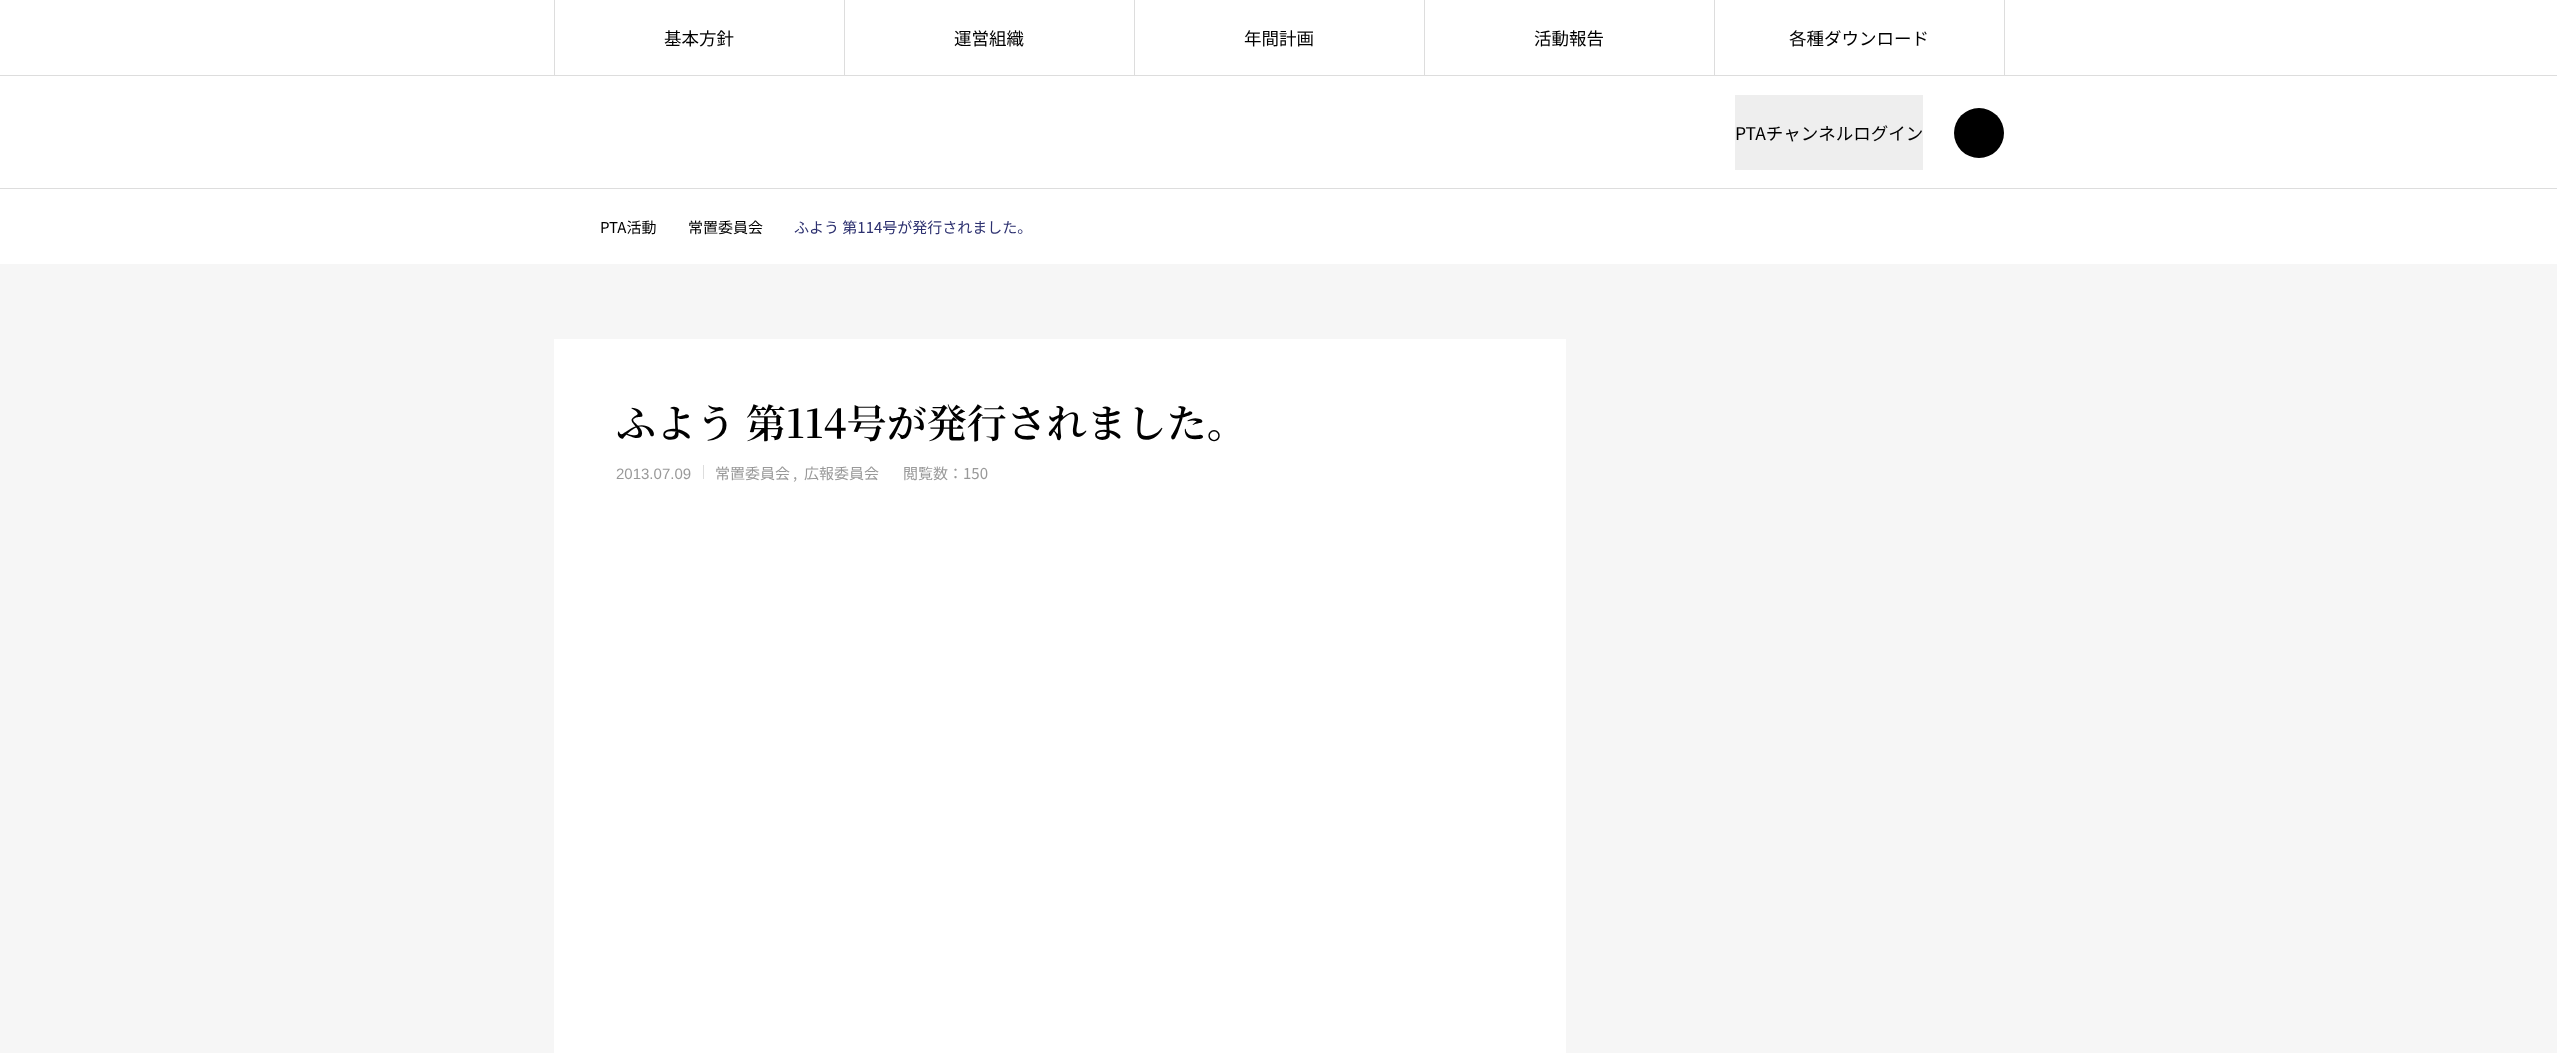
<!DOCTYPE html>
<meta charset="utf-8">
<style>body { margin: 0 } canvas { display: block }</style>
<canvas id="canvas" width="2557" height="1053"></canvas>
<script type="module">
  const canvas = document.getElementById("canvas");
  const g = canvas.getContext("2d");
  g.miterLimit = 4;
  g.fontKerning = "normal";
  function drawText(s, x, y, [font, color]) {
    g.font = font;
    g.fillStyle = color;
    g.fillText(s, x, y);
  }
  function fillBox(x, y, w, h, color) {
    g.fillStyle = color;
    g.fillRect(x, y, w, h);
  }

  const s1 = ["17.5px Noto Sans JP", "#000000"];
  const s2 = ["15px Noto Sans JP", "#000000"];
  const s3 = ["15px Noto Sans JP", "#2C306F"];
  const s4 = ["600 40px Noto Serif JP", "#000000"];
  const s5 = ["15px Liberation Sans", "#999999"];
  const s6 = ["15px Noto Sans JP", "#999999"];

  fillBox(0, 0, 2557, 1053, "#F6F6F6");
  fillBox(0, 0, 2557, 188, "#FFFFFF");
  fillBox(0, 188, 2557, 1, "#DDDDDD");
  fillBox(0, 75, 2557, 1, "#DDDDDD");
  fillBox(554, 0, 1, 75, "#DDDDDD");
  fillBox(844, 0, 1, 75, "#DDDDDD");
  drawText("基本方針", 664, 45, s1);
  fillBox(1134, 0, 1, 75, "#DDDDDD");
  drawText("運営組織", 954, 45, s1);
  fillBox(1424, 0, 1, 75, "#DDDDDD");
  drawText("年間計画", 1244, 45, s1);
  fillBox(1714, 0, 1, 75, "#DDDDDD");
  drawText("活動報告", 1534, 45, s1);
  fillBox(2004, 0, 1, 75, "#DDDDDD");
  drawText("各種ダウンロード", 1789, 45, s1);
  fillBox(1735, 95, 188, 75, "#EEEEEE");
  drawText("PTAチャンネルログイン", 1735, 140, s1);
  g.beginPath();
  g.arc(1979, 133, 25, 0, Math.PI * 2);
  g.fill();
  fillBox(0, 189, 2557, 75, "#FFFFFF");
  drawText("PTA活動", 600, 233, s2);
  drawText("常置委員会", 688, 233, s2);
  drawText("ふよう 第114号が発行されました。", 794, 233, s3);
  fillBox(554, 339, 1012, 714, "#FFFFFF");
  drawText("ふよう 第114号が発行されました。", 616, 438, s4);
  drawText("2013.07.09", 616, 479, s5);
  fillBox(703, 465, 1, 14, "#DDDDDD");
  drawText("常置委員会", 715, 479, s6);
  drawText(",", 793, 479, s6);
  drawText("広報委員会", 804, 479, s6);
  drawText("閲覧数：150", 903, 479, s6);
</script>
